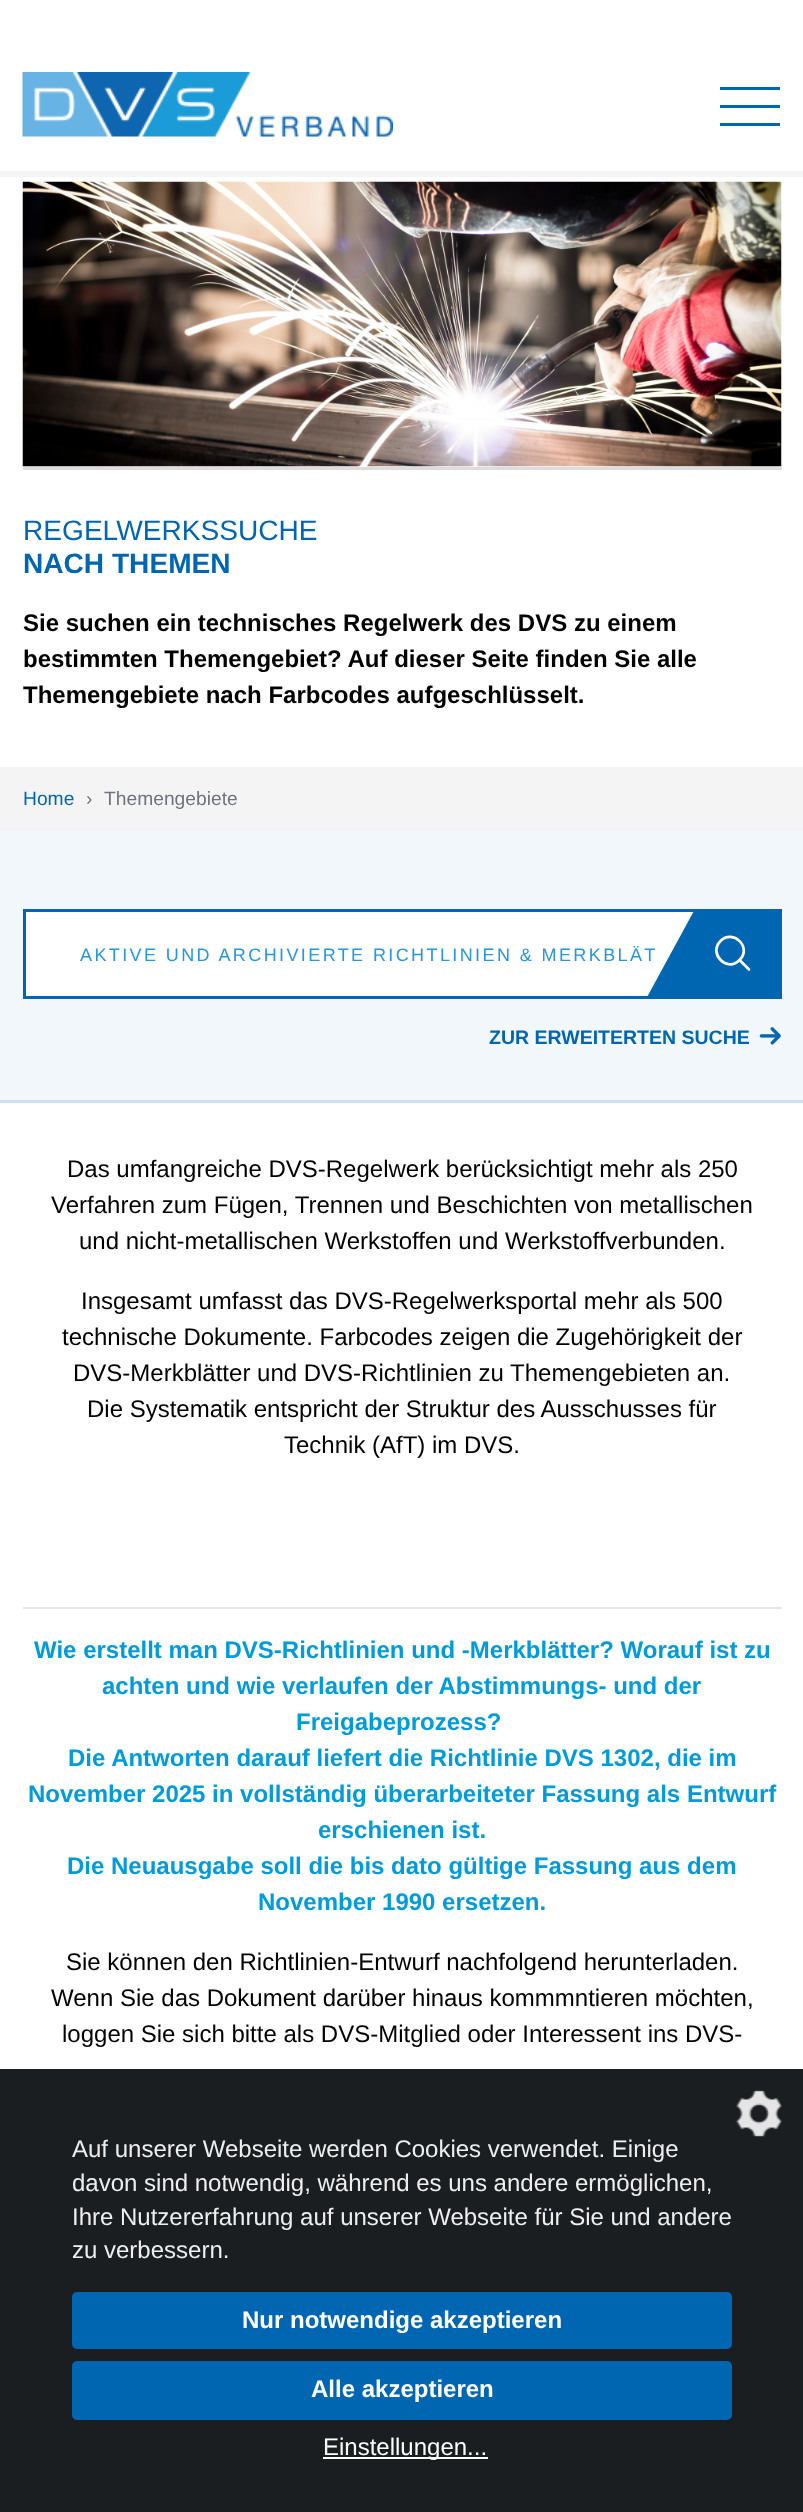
<!DOCTYPE html>
<meta charset="utf-8">
<style>body { margin: 0 } canvas { display: block }</style>
<canvas id="canvas" width="803" height="2512"></canvas>
<script type="module">
  const canvas = document.getElementById("canvas");
  const g = canvas.getContext("2d");
  g.miterLimit = 4;
  g.fontKerning = "normal";
  function drawText(s, x, y, [font, color]) {
    g.font = font;
    g.fillStyle = color;
    g.fillText(s, x, y);
  }
  function fillBox(x, y, w, h, color) {
    g.fillStyle = color;
    g.fillRect(x, y, w, h);
  }
  function fillRounded(x, y, w, h, r, color) {
    g.fillStyle = color;
    g.beginPath();
    g.roundRect(x, y, w, h, r);
    g.fill();
  }
  async function drawPicture(src, x, y, w, h) {
    const img = new Image();
    img.src = src;
    await img.decode();
    g.drawImage(img, x, y, w, h);
  }

  const s1 = ["28.1px Liberation Sans", "#0066B2"];
  const s2 = ["bold 28.1px Liberation Sans", "#0066B2"];
  const s3 = ["bold 24px Liberation Sans", "#000000"];
  const s4 = ["19.25px Liberation Sans", "#0066B2"];
  const s5 = ["19.25px Liberation Sans", "#6C757D"];
  const s6 = ["18px Liberation Sans", "#2696DD"];
  const s7 = ["bold 19.5px Liberation Sans", "#0066B2"];
  const s8 = ["24px Liberation Sans", "#000000"];
  const s9 = ["bold 24px Liberation Sans", "#009BDB"];
  const s10 = ["24px Liberation Sans", "#EEEEEE"];
  const s11 = ["bold 24px Liberation Sans", "#FFFFFF"];
  const s12 = ["24px Liberation Sans", "#FFFFFF"];

  fillBox(0, 0, 803, 2512, "#FFFFFF");
  fillBox(0, 171, 803, 6, "#F4F4F4");
  await drawPicture("pic1.png", 22, 72, 371, 65);
  fillBox(720, 87, 60, 3, "#0066B2");
  fillBox(720, 105, 60, 3, "#0066B2");
  fillBox(720, 123, 60, 3, "#0066B2");
  fillBox(23, 467, 759, 3, "#DDDDDD");
  await drawPicture("pic2.png", 22, 181, 760, 286);
  drawText("REGELWERKSSUCHE", 23, 540, s1);
  drawText("NACH THEMEN", 23, 573, s2);
  drawText("Sie suchen ein technisches Regelwerk des DVS zu einem", 23, 631, s3);
  drawText("bestimmten Themengebiet? Auf dieser Seite finden Sie alle", 23, 667, s3);
  drawText("Themengebiete nach Farbcodes aufgeschlüsselt.", 23, 703, s3);
  fillBox(0, 767, 803, 64, "#F4F4F4");
  drawText("Home", 23, 805, s4);
  drawText("›", 86, 805, s5);
  drawText("Themengebiete", 104, 805, s5);
  fillBox(0, 831, 803, 269, "#F2F7FB");
  fillBox(0, 1100, 803, 3, "#CCDFEE");
  fillBox(26, 912, 668, 84, "#FFFFFF");
  g.strokeStyle = "#0066B2";
  g.lineWidth = 3;
  g.strokeRect(24.5, 910.5, 684, 87);
  g.letterSpacing = "2.4px";
  drawText("AKTIVE UND ARCHIVIERTE RICHTLINIEN & MERKBLÄT", 80, 961, s6);
  g.fillStyle = "#0066B2";
  g.beginPath();
  g.moveTo(695, 909);
  g.lineTo(776, 909);
  g.lineTo(727, 999);
  g.lineTo(646, 999);
  g.closePath();
  g.fill();
  fillBox(727, 909, 55, 90, "#0066B2");
  g.beginPath();
  g.moveTo(749, 969.5);
  g.lineTo(739.5, 960);
  g.moveTo(739.5, 960);
  g.bezierCurveTo(752.5, 947.5, 733, 928.5, 720.5, 941);
  g.bezierCurveTo(708, 953.5, 727, 973, 739.5, 960);
  g.closePath();
  g.strokeStyle = "#FFFFFF";
  g.lineWidth = 2.7;
  g.lineCap = "round";
  g.lineJoin = "round";
  g.stroke();
  await drawPicture("pic3.png", 759, 1027, 22, 18);
  g.letterSpacing = "0px";
  drawText("ZUR ERWEITERTEN SUCHE", 489, 1044, s7);
  drawText("Das umfangreiche DVS-Regelwerk berücksichtigt mehr als 250", 67, 1177, s8);
  drawText("Verfahren zum Fügen, Trennen und Beschichten von metallischen", 51, 1213, s8);
  drawText("und nicht-metallischen Werkstoffen und Werkstoffverbunden.", 79, 1249, s8);
  drawText("Insgesamt umfasst das DVS-Regelwerksportal mehr als 500", 81, 1309, s8);
  drawText("technische Dokumente. Farbcodes zeigen die Zugehörigkeit der", 62, 1345, s8);
  drawText("DVS-Merkblätter und DVS-Richtlinien zu Themengebieten an.", 73, 1381, s8);
  drawText("Die Systematik entspricht der Struktur des Ausschusses für", 87, 1417, s8);
  drawText("Technik (AfT) im DVS.", 284, 1453, s8);
  fillBox(23, 1607, 759, 2, "#E6E6E6");
  drawText("Wie erstellt man DVS-Richtlinien und -Merkblätter? Worauf ist zu", 34, 1658, s9);
  drawText("achten und wie verlaufen der Abstimmungs- und der", 102, 1694, s9);
  drawText("Freigabeprozess?", 296, 1730, s9);
  drawText("Die Antworten darauf liefert die Richtlinie DVS 1302, die im", 68, 1766, s9);
  drawText("November 2025 in vollständig überarbeiteter Fassung als Entwurf", 28, 1802, s9);
  drawText("erschienen ist.", 318, 1838, s9);
  drawText("Die Neuausgabe soll die bis dato gültige Fassung aus dem", 67, 1874, s9);
  drawText("November 1990 ersetzen.", 258, 1910, s9);
  drawText("Sie können den Richtlinien-Entwurf nachfolgend herunterladen.", 66, 1970, s8);
  drawText("Wenn Sie das Dokument darüber hinaus kommmntieren möchten,", 51, 2006, s8);
  drawText("loggen Sie sich bitte als DVS-Mitglied oder Interessent ins DVS-", 62, 2042, s8);
  fillBox(0, 2069, 803, 443, "#1B1E21");
  await drawPicture("pic4.png", 735, 2090, 47, 47);
  drawText("Auf unserer Webseite werden Cookies verwendet. Einige", 72, 2157, s10);
  drawText("davon sind notwendig, während es uns andere ermöglichen,", 72, 2191, s10);
  drawText("Ihre Nutzererfahrung auf unserer Webseite für Sie und andere", 72, 2225, s10);
  drawText("zu verbessern.", 72, 2258, s10);
  fillRounded(72, 2292, 660, 57, 5, "#0066B2");
  drawText("Nur notwendige akzeptieren", 242, 2328, s11);
  fillRounded(72, 2361, 660, 59, 5, "#0066B2");
  drawText("Alle akzeptieren", 311, 2397, s11);
  fillBox(323, 2457, 165, 2, "#FFFFFF");
  drawText("Einstellungen...", 323, 2455, s12);
</script>
